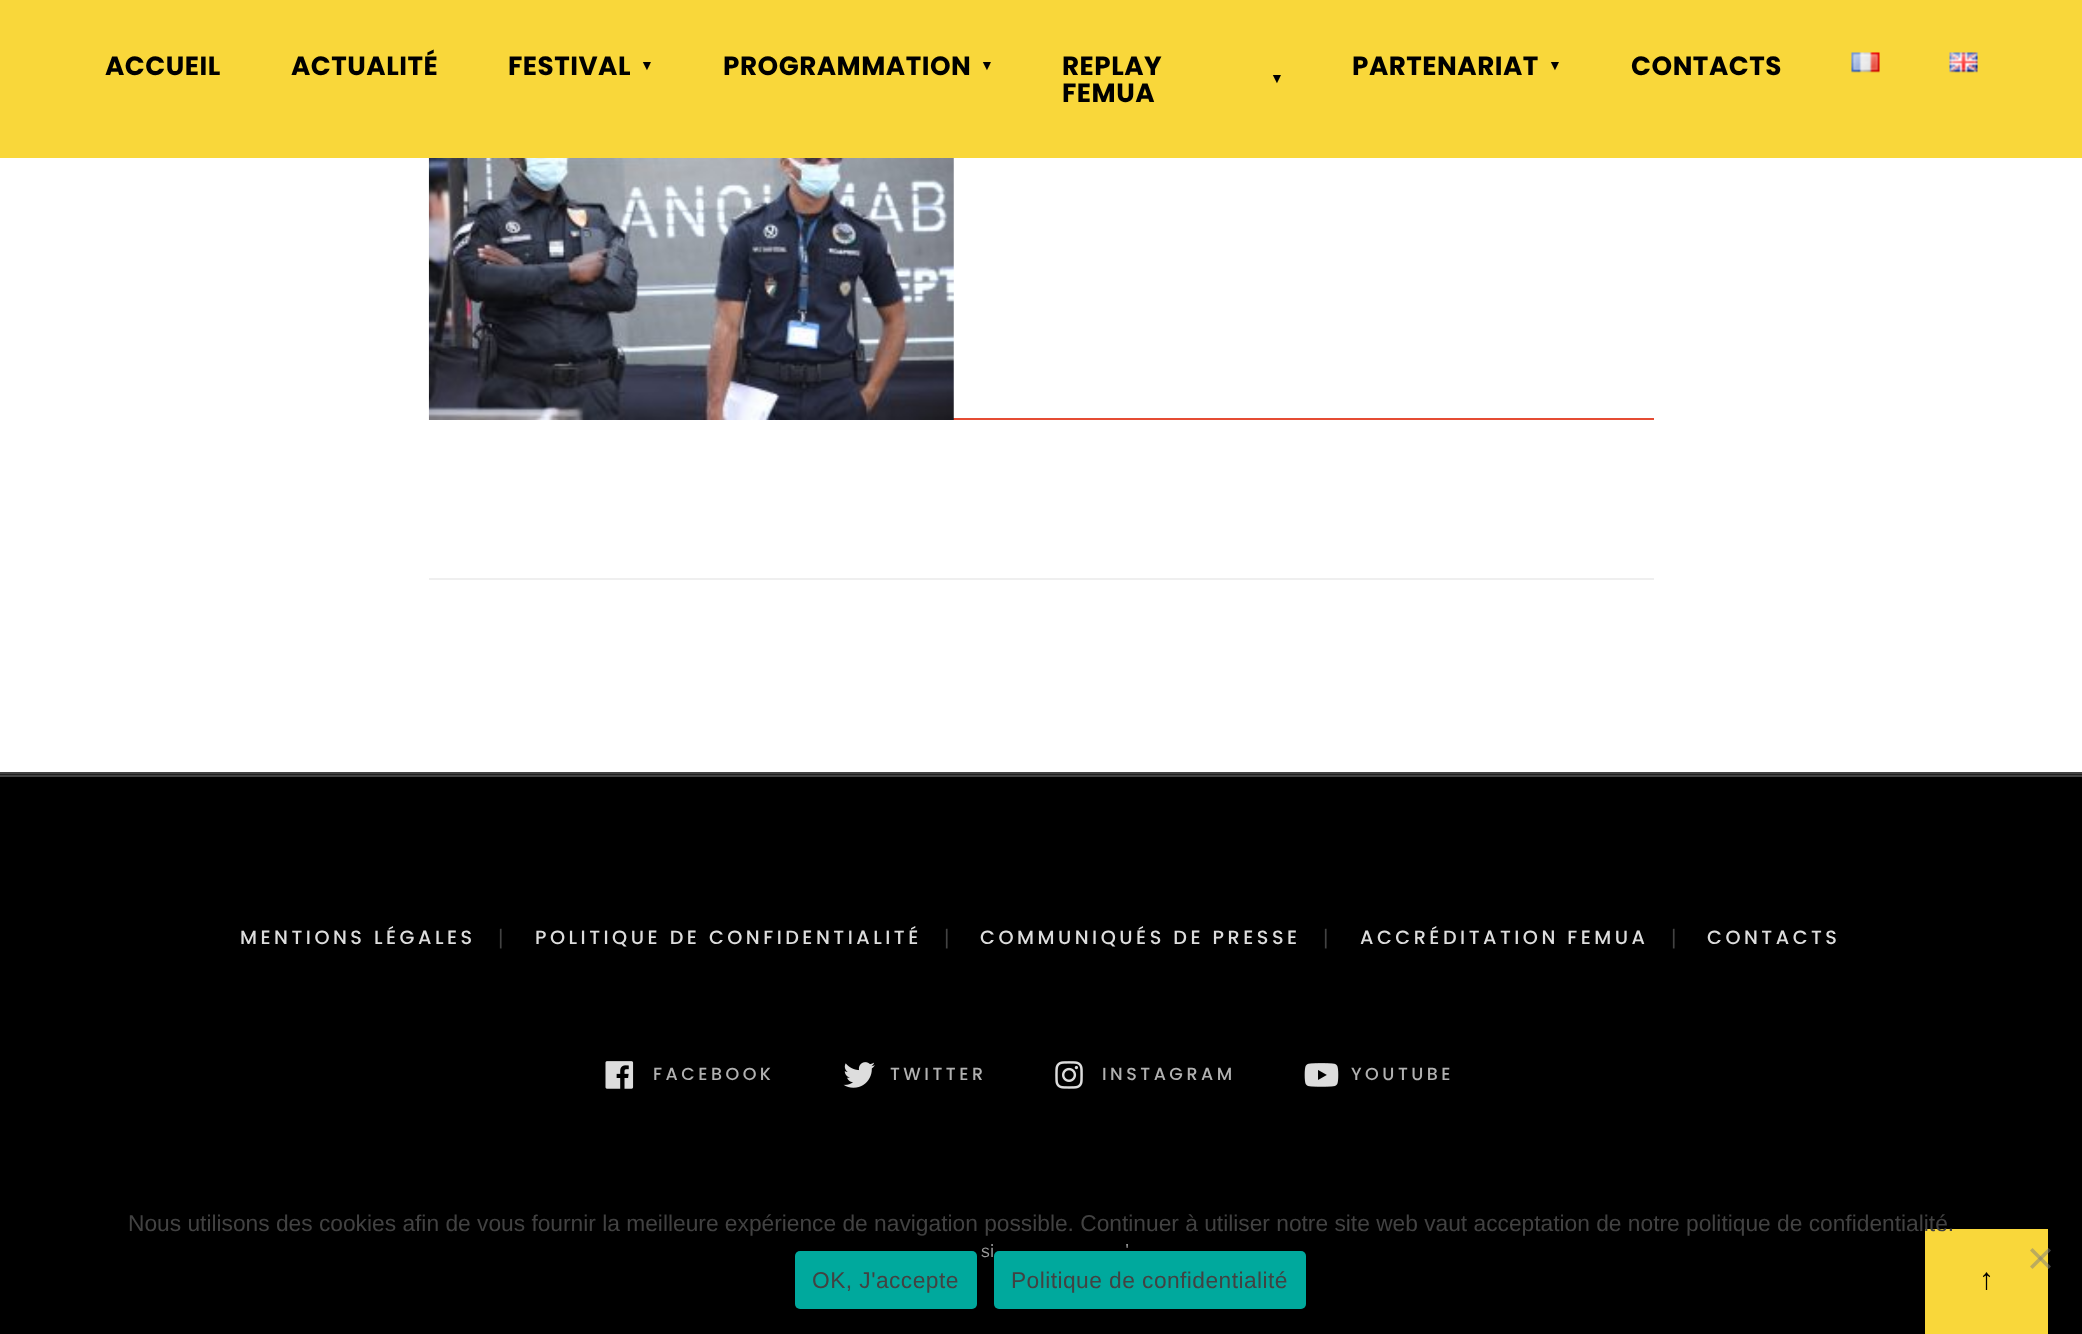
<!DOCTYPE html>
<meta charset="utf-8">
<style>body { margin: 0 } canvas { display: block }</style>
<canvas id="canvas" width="2082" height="1334"></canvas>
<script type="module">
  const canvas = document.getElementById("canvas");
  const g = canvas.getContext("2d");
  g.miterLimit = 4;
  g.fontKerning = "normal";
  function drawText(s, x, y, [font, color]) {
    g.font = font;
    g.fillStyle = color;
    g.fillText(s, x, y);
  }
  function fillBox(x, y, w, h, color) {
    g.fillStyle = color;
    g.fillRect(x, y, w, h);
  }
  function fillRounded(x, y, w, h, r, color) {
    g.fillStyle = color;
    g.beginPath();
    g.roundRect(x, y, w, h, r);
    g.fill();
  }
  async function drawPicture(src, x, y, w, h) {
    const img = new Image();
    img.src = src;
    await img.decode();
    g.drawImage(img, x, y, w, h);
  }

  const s1 = ["bold 26.25px Poppins", "#000000"];
  const s2 = ["14px Liberation Sans", "#000000"];
  const s3 = ["500 19.25px Poppins", "#DDDDDD"];
  const s4 = ["21px Liberation Sans", "#424242"];
  const s5 = ["500 17.5px Poppins", "#B1B1B1"];
  const s6 = ["100 17.5px Libre Franklin", "#9B9B9B"];
  const s7 = ["30px Liberation Serif", "#000000"];
  const s8 = ["22.75px Liberation Sans", "#424242"];

  fillBox(0, 0, 2082, 1334, "#FFFFFF");
  fillBox(0, 0, 2082, 158, "#F9D73A");
  g.letterSpacing = "0.5px";
  drawText("ACCUEIL", 105, 75, s1);
  drawText("ACTUALITÉ", 291, 75, s1);
  drawText("FESTIVAL", 508, 75, s1);
  drawText("▼", 640, 70, s2);
  drawText("PROGRAMMATION", 723, 75, s1);
  drawText("▼", 980, 70, s2);
  drawText("REPLAY", 1062, 75, s1);
  drawText("▼", 1270, 83, s2);
  drawText("FEMUA", 1062, 102, s1);
  drawText("PARTENARIAT", 1352, 75, s1);
  drawText("▼", 1548, 70, s2);
  drawText("CONTACTS", 1631, 75, s1);
  await drawPicture("pic1.png", 1851, 52, 29, 21);
  await drawPicture("pic2.png", 1949, 52, 29, 21);
  fillBox(953, 418, 701, 2, "#E54C34");
  await drawPicture("pic3.png", 428, 158, 526, 262);
  fillBox(429, 578, 1225, 2, "#EFEFEF");
  fillBox(0, 774, 2082, 1, "#212121");
  fillBox(0, 772, 2082, 2, "#424242");
  fillBox(0, 777, 2082, 557, "#000000");
  fillBox(0, 775, 2082, 2, "#424242");
  g.letterSpacing = "3.5px";
  drawText("MENTIONS LÉGALES", 240, 944, s3);
  g.letterSpacing = "0px";
  drawText("|", 498, 944, s4);
  g.letterSpacing = "3.5px";
  drawText("POLITIQUE DE CONFIDENTIALITÉ", 535, 944, s3);
  g.letterSpacing = "0px";
  drawText("|", 944, 944, s4);
  g.letterSpacing = "3.5px";
  drawText("COMMUNIQUÉS DE PRESSE", 980, 944, s3);
  g.letterSpacing = "0px";
  drawText("|", 1323, 944, s4);
  g.letterSpacing = "3.5px";
  drawText("ACCRÉDITATION FEMUA", 1360, 944, s3);
  g.letterSpacing = "0px";
  drawText("|", 1671, 944, s4);
  g.letterSpacing = "3.5px";
  drawText("CONTACTS", 1707, 944, s3);
  await drawPicture("pic4.png", 605, 1061, 29, 28);
  drawText("FACEBOOK", 653, 1080, s5);
  await drawPicture("pic5.png", 843, 1062, 32, 26);
  drawText("TWITTER", 890, 1080, s5);
  await drawPicture("pic6.png", 1055, 1061, 28, 28);
  drawText("INSTAGRAM", 1102, 1080, s5);
  await drawPicture("pic7.png", 1304, 1063, 35, 24);
  drawText("YOUTUBE", 1351, 1080, s5);
  g.letterSpacing = "0px";
  drawText("si", 981, 1257, s6);
  drawText("'", 1125, 1257, s6);
  fillBox(1925, 1229, 123, 105, "#F9D73A");
  drawText("↑", 1979, 1289, s7);
  drawText("Nous utilisons des cookies afin de vous fournir la meilleure expérience de navigation possible. Continuer à utiliser notre site web vaut acceptation de notre politique de confidentialité.", 128, 1231, s8);
  g.fillStyle = "rgba(128, 128, 128, 0.5)";
  g.beginPath();
  g.moveTo(2048.5, 1248);
  g.lineTo(2051, 1250.5);
  g.lineTo(2032.5, 1269);
  g.lineTo(2030, 1266.5);
  g.closePath();
  g.fill();
  g.beginPath();
  g.moveTo(2030, 1250.5);
  g.lineTo(2032.5, 1248);
  g.lineTo(2051, 1266.5);
  g.lineTo(2048.5, 1269);
  g.closePath();
  g.fill();
  fillRounded(795, 1251, 182, 58, 5, "#00A99D");
  g.letterSpacing = "0.45px";
  drawText("OK, J'accepte", 812, 1288, s8);
  fillRounded(994, 1251, 312, 58, 5, "#00A99D");
  drawText("Politique de confidentialité", 1011, 1288, s8);
</script>
